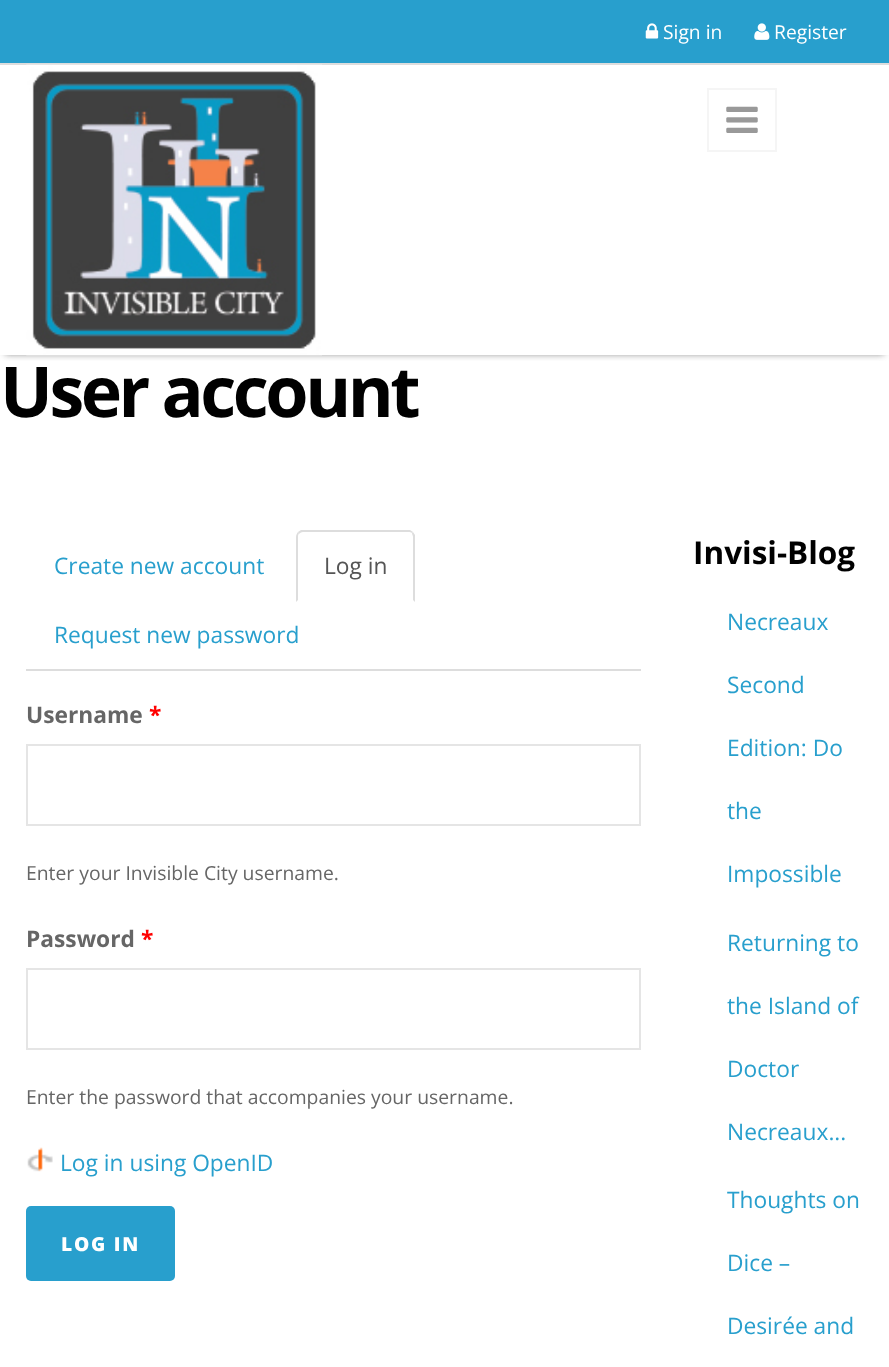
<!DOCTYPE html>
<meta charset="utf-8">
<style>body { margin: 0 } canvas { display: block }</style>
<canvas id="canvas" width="889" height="1367"></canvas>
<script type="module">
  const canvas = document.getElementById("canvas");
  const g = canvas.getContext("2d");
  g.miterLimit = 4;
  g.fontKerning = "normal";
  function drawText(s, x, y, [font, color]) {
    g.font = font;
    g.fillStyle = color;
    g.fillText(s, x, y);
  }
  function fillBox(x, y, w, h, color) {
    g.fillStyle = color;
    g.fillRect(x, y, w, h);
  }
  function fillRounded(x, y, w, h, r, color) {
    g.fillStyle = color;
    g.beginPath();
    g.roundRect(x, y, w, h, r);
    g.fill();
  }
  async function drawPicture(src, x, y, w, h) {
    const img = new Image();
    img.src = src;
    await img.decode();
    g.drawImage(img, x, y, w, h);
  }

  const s1 = ["19.25px Open Sans", "#FFFFFF"];
  const s2 = ["bold 70px Open Sans", "#000000"];
  const s3 = ["22.75px Open Sans", "#289FCD"];
  const s4 = ["22.75px Open Sans", "#555555"];
  const s5 = ["bold 22.75px Open Sans", "#666666"];
  const s6 = ["bold 22.75px Open Sans", "#FF0000"];
  const s7 = ["19.35px Open Sans", "#666666"];
  const s8 = ["800 19.25px Open Sans", "#FFFFFF"];
  const s9 = ["bold 31.5px Open Sans", "#000000"];

  fillBox(0, 0, 889, 1367, "#FFFFFF");
  fillBox(0, 0, 889, 63, "#289FCD");
  fillBox(0, 63, 889, 2, "#DDDDDD");
  await drawPicture("pic1.png", 645, 23, 14, 16);
  drawText("Sign in", 663, 39, s1);
  await drawPicture("pic2.png", 754, 23, 16, 17);
  drawText("Register", 774, 39, s1);
  g.save();
  g.beginPath();
  g.rect(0, 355, 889, 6);
  g.clip();
  g.fillStyle = "#808080";
  g.filter = "blur(3.5px)";
  g.beginPath();
  g.rect(5, 74, 879, 280);
  g.fill();
  g.filter = "none";
  g.restore();
  await drawPicture("pic3.png", 26, 64, 296, 292);
  g.strokeStyle = "#F5F5F5";
  g.lineWidth = 2;
  g.strokeRect(708, 89, 68, 62);
  await drawPicture("pic4.png", 726, 106, 32, 27);
  g.letterSpacing = "-3.5px";
  drawText("User account", 0, 417, s2);
  fillBox(26, 669, 615, 2, "#DDDDDD");
  g.letterSpacing = "0px";
  drawText("Create new account", 54, 574, s3);
  g.fillStyle = "#DDDDDD";
  g.beginPath();
  g.moveTo(303, 532);
  g.bezierCurveTo(301, 532, 300, 533, 299, 534);
  g.lineTo(298, 532);
  g.lineTo(301, 530);
  g.lineTo(410, 530);
  g.lineTo(413, 532);
  g.lineTo(412, 533);
  g.bezierCurveTo(411, 532, 410, 532, 408, 532);
  g.closePath();
  g.fill();
  g.beginPath();
  g.moveTo(415, 535);
  g.lineTo(415, 602);
  g.lineTo(413, 600);
  g.lineTo(413, 537);
  g.bezierCurveTo(413, 536, 412, 534, 412, 533);
  g.lineTo(413, 532);
  g.closePath();
  g.fill();
  g.beginPath();
  g.moveTo(296, 602);
  g.lineTo(296, 537);
  g.bezierCurveTo(296, 535, 297, 533, 298, 532);
  g.lineTo(299, 534);
  g.bezierCurveTo(298, 534, 298, 536, 298, 537);
  g.lineTo(298, 600);
  g.closePath();
  g.fill();
  drawText("Log in", 324, 574, s4);
  drawText("Request new password", 54, 643, s3);
  drawText("Username", 26, 723, s5);
  drawText("*", 149, 723, s6);
  g.strokeStyle = "#E5E5E5";
  g.strokeRect(27, 745, 613, 80);
  drawText("Enter your Invisible City username.", 26, 880, s7);
  drawText("Password", 26, 947, s5);
  drawText("*", 141, 947, s6);
  g.strokeRect(27, 969, 613, 80);
  drawText("Enter the password that accompanies your username.", 26, 1104, s7);
  await drawPicture("pic5.png", 27, 1147, 26, 25);
  drawText("Log in using OpenID", 60, 1171, s3);
  fillRounded(26, 1206, 149, 75, 5, "#289FCD");
  g.letterSpacing = "1.75px";
  drawText("LOG IN", 61, 1251, s8);
  g.letterSpacing = "0px";
  drawText("Invisi-Blog", 693, 564, s9);
  drawText("Necreaux", 727, 630, s3);
  drawText("Second", 727, 693, s3);
  drawText("Edition: Do", 727, 756, s3);
  drawText("the", 727, 819, s3);
  drawText("Impossible", 727, 882, s3);
  drawText("Returning to", 727, 951, s3);
  drawText("the Island of", 727, 1014, s3);
  drawText("Doctor", 727, 1077, s3);
  drawText("Necreaux...", 727, 1140, s3);
  drawText("Thoughts on", 727, 1208, s3);
  drawText("Dice –", 727, 1271, s3);
  drawText("Desirée and", 727, 1334, s3);
</script>
